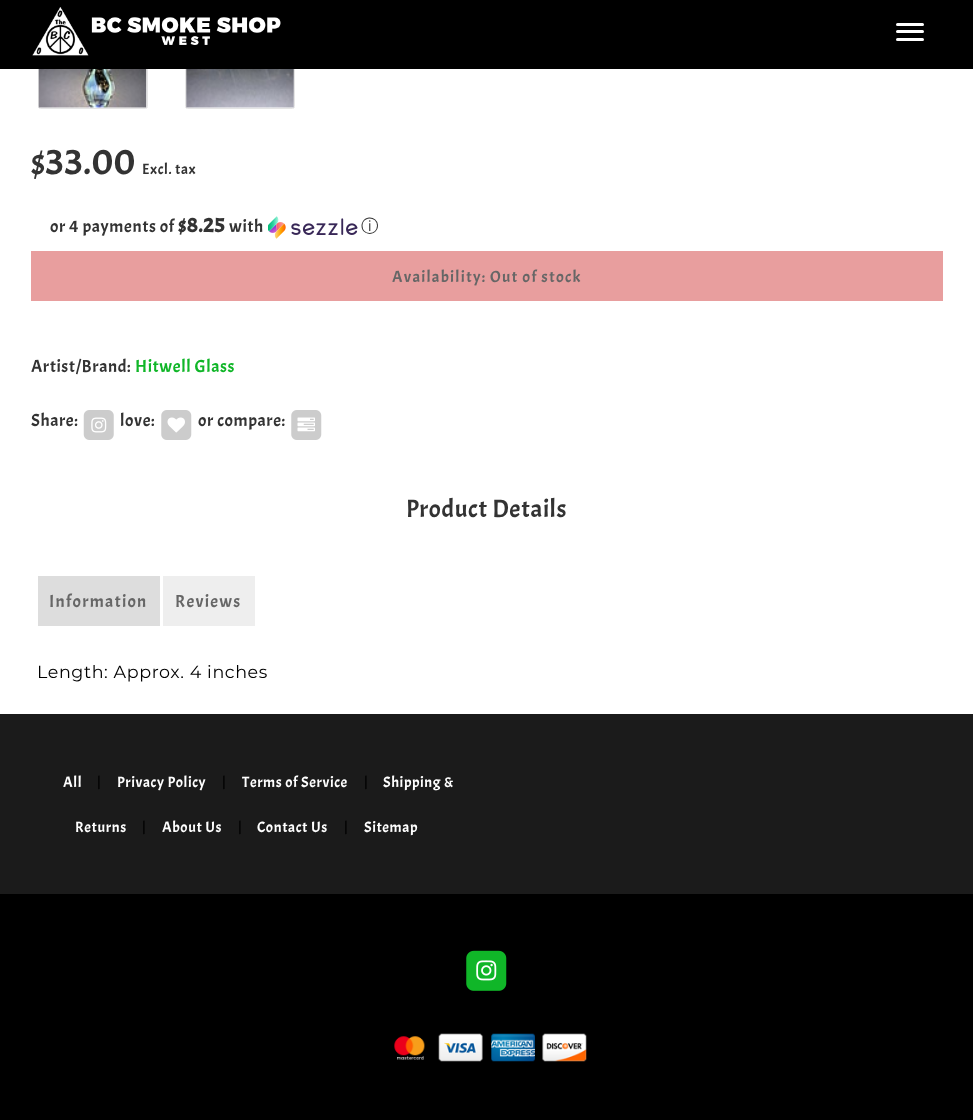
<!DOCTYPE html>
<meta charset="utf-8">
<style>body { margin: 0 } canvas { display: block }</style>
<canvas id="canvas" width="973" height="1120"></canvas>
<script type="module">
  const canvas = document.getElementById("canvas");
  const g = canvas.getContext("2d");
  g.miterLimit = 4;
  g.fontKerning = "normal";
  function drawText(s, x, y, [font, color]) {
    g.font = font;
    g.fillStyle = color;
    g.fillText(s, x, y);
  }
  function fillBox(x, y, w, h, color) {
    g.fillStyle = color;
    g.fillRect(x, y, w, h);
  }
  function fillRounded(x, y, w, h, r, color) {
    g.fillStyle = color;
    g.beginPath();
    g.roundRect(x, y, w, h, r);
    g.fill();
  }
  async function drawPicture(src, x, y, w, h) {
    const img = new Image();
    img.src = src;
    await img.decode();
    g.drawImage(img, x, y, w, h);
  }

  const s1 = ["37.5px Acme", "#333333"];
  const s2 = ["15px Acme", "#333333"];
  const s3 = ["17.5px Acme", "#333333"];
  const s4 = ["bold 21px Acme", "#333333"];
  const s5 = ["500 17.5px WenQuanYi Zen Hei", "#333333"];
  const s6 = ["16.25px Acme", "#666666"];
  const s7 = ["17.5px Acme", "#10B628"];
  const s8 = ["25px Acme", "#333333"];
  const s9 = ["17.5px Acme", "#666666"];
  const s10 = ["17.5px Montserrat", "#000000"];
  const s11 = ["15px Acme", "#FFFFFF"];
  const s12 = ["15px Acme", "#000000"];

  fillBox(0, 0, 973, 1120, "#FFFFFF");
  g.beginPath();
  g.roundRect(38.5, -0.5, 109, 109, 2);
  g.strokeStyle = "#E5E5E5";
  g.stroke();
  g.beginPath();
  g.roundRect(185.5, -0.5, 109, 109, 2);
  g.stroke();
  fillBox(0, 0, 973, 69, "#000000");
  await drawPicture("pic1.png", 32, 7, 249, 49);
  fillRounded(896, 23, 28, 3, 1.5, "#FFFFFF");
  fillRounded(896, 30, 28, 3, 1.5, "#FFFFFF");
  fillRounded(896, 38, 28, 3, 1.5, "#FFFFFF");
  await drawPicture("pic2.png", 38, 69, 109, 39);
  await drawPicture("pic3.png", 186, 69, 108, 39);
  g.letterSpacing = "0.6px";
  drawText("$33.00", 31, 174, s1);
  drawText("Excl. tax", 142, 174, s2);
  drawText("or 4 payments of", 50, 232, s3);
  drawText("$8.25", 178, 232, s4);
  drawText("with", 229, 232, s3);
  await drawPicture("pic4.png", 268, 216, 90, 23);
  drawText("ⓘ", 361, 232, s5);
  fillBox(31, 251, 912, 50, "#E89E9E");
  g.letterSpacing = "1.25px";
  drawText("Availability: Out of stock", 392, 282, s6);
  g.letterSpacing = "0.6px";
  drawText("Artist/Brand:", 31, 372, s3);
  drawText("Hitwell Glass", 135, 372, s7);
  drawText("Share:", 31, 426, s3);
  await drawPicture("pic5.png", 83, 410, 31, 30);
  await drawPicture("pic6.png", 91, 417, 16, 16);
  drawText("love:", 120, 426, s3);
  await drawPicture("pic7.png", 161, 410, 31, 30);
  await drawPicture("pic8.png", 167, 417, 18, 16);
  drawText("or compare:", 198, 426, s3);
  await drawPicture("pic7.png", 291, 410, 31, 30);
  await drawPicture("pic9.png", 297, 417, 18, 15);
  drawText("Product Details", 406, 517, s8);
  fillBox(38, 576, 122, 50, "#DDDDDD");
  g.letterSpacing = "1.25px";
  drawText("Information", 49, 607, s9);
  fillBox(163, 576, 92, 50, "#EEEEEE");
  drawText("Reviews", 175, 607, s9);
  g.letterSpacing = "0.6px";
  drawText("Length: Approx. 4 inches", 37, 678, s10);
  fillBox(0, 714, 973, 180, "#1B1B1B");
  drawText("All", 63, 787, s11);
  drawText("|", 97, 787, s12);
  drawText("Privacy Policy", 117, 787, s11);
  drawText("|", 222, 787, s12);
  drawText("Terms of Service", 242, 787, s11);
  drawText("|", 364, 787, s12);
  drawText("Shipping &", 383, 787, s11);
  drawText("Returns", 75, 832, s11);
  drawText("|", 142, 832, s12);
  drawText("About Us", 162, 832, s11);
  drawText("|", 238, 832, s12);
  drawText("Contact Us", 257, 832, s11);
  drawText("|", 344, 832, s12);
  drawText("Sitemap", 364, 832, s11);
  fillBox(0, 894, 973, 226, "#000000");
  await drawPicture("pic10.png", 466, 950, 41, 41);
  await drawPicture("pic11.png", 476, 960, 21, 21);
  await drawPicture("pic12.png", 394, 1036, 31, 24);
  await drawPicture("pic13.png", 438, 1033, 45, 29);
  await drawPicture("pic14.png", 491, 1033, 44, 29);
  await drawPicture("pic15.png", 542, 1033, 45, 29);
</script>
